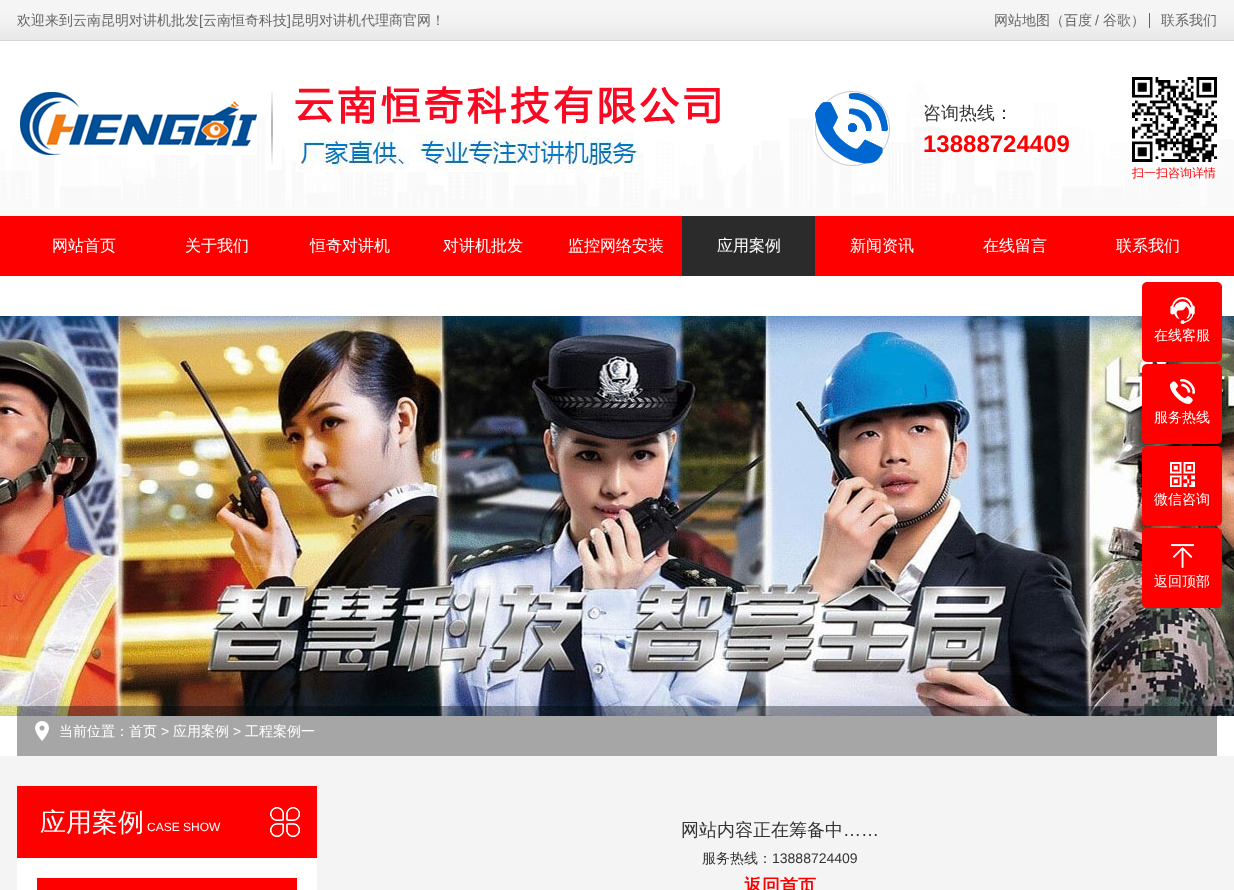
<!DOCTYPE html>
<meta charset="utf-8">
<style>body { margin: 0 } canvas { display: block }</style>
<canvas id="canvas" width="1234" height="890"></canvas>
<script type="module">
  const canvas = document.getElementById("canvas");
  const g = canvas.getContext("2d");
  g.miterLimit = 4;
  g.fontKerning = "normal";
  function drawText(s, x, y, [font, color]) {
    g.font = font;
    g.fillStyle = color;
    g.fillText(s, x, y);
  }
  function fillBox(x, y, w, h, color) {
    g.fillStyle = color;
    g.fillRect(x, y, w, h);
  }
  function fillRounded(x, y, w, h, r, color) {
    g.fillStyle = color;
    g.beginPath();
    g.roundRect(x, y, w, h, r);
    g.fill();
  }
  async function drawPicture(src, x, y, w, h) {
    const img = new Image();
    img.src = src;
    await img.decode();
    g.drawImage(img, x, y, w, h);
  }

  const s1 = ["500 14px WenQuanYi Zen Hei", "#666666"];
  const s2 = ["14px Liberation Sans", "#666666"];
  const s3 = ["500 18px WenQuanYi Zen Hei", "#333333"];
  const s4 = ["bold 24px Liberation Sans", "#FE0000"];
  const s5 = ["500 12px WenQuanYi Zen Hei", "#FE0000"];
  const s6 = ["500 16px WenQuanYi Zen Hei", "#FFFFFF"];
  const s7 = ["500 14px WenQuanYi Zen Hei", "#FFFFFF"];
  const s8 = ["14px Liberation Sans", "#FFFFFF"];
  const s9 = ["500 26px WenQuanYi Zen Hei", "#FFFFFF"];
  const s10 = ["12px Liberation Sans", "#FFFFFF"];
  const s11 = ["18px Liberation Sans", "#333333"];
  const s12 = ["500 14px WenQuanYi Zen Hei", "#333333"];
  const s13 = ["14px Liberation Sans", "#333333"];
  const s14 = ["bold 18px WenQuanYi Zen Hei", "#FE0000"];

  fillBox(0, 0, 1234, 890, "#FFFFFF");
  await drawPicture("pic1.png", 0, 0, 1234, 40);
  fillBox(0, 40, 1234, 1, "#D8D8D8");
  drawText("欢迎来到云南昆明对讲机批发", 17, 25, s1);
  drawText("[", 199, 25, s2);
  drawText("云南恒奇科技", 203, 25, s1);
  drawText("]", 287, 25, s2);
  drawText("昆明对讲机代理商官网！", 291, 25, s1);
  drawText("网站地图（百度", 994, 25, s1);
  drawText("/", 1095, 25, s2);
  drawText("谷歌）", 1103, 25, s1);
  fillBox(1149, 13, 1, 15, "#666666");
  drawText("联系我们", 1161, 25, s1);
  await drawPicture("pic2.png", 0, 80, 1234, 136);
  await drawPicture("pic3.png", 20, 85, 700, 87);
  await drawPicture("pic4.png", 815, 91, 75, 75);
  drawText("咨询热线：", 923, 119, s3);
  drawText("13888724409", 923, 152, s4);
  await drawPicture("pic5.png", 1132, 77, 85, 85);
  drawText("扫一扫咨询详情", 1132, 177, s5);
  fillBox(0, 216, 1234, 60, "#FE0000");
  drawText("网站首页", 52, 251, s6);
  drawText("关于我们", 185, 251, s6);
  drawText("恒奇对讲机", 310, 251, s6);
  drawText("对讲机批发", 443, 251, s6);
  drawText("监控网络安装", 568, 251, s6);
  fillBox(682, 216, 133, 60, "#2B2B2B");
  drawText("应用案例", 717, 251, s6);
  drawText("新闻资讯", 850, 251, s6);
  drawText("在线留言", 983, 251, s6);
  drawText("联系我们", 1116, 251, s6);
  await drawPicture("pic6.png", 0, 316, 1234, 400);
  fillRounded(1142, 282, 80, 80, 5, "#FE0000");
  await drawPicture("pic7.png", 1170, 297, 25, 27);
  drawText("在线客服", 1154, 340, s7);
  fillRounded(1142, 364, 80, 80, 5, "#FE0000");
  await drawPicture("pic8.png", 1170, 379, 25, 25);
  drawText("服务热线", 1154, 422, s7);
  fillRounded(1142, 446, 80, 80, 5, "#FE0000");
  await drawPicture("pic9.png", 1170, 462, 25, 25);
  drawText("微信咨询", 1154, 504, s7);
  fillRounded(1142, 528, 80, 80, 5, "#FE0000");
  await drawPicture("pic10.png", 1171, 544, 23, 24);
  drawText("返回顶部", 1154, 586, s7);
  fillBox(17, 706, 1200, 50, "rgba(0, 0, 0, 0.35)");
  await drawPicture("pic11.png", 35, 721, 14, 20);
  drawText("当前位置：首页", 59, 736, s7);
  drawText(">", 161, 736, s8);
  drawText("应用案例", 173, 736, s7);
  drawText(">", 233, 736, s8);
  drawText("工程案例一", 245, 736, s7);
  fillBox(0, 756, 1234, 134, "#F4F4F4");
  fillBox(17, 786, 300, 72, "#FE0000");
  await drawPicture("pic12.png", 270, 807, 30, 30);
  drawText("应用案例", 40, 831, s9);
  drawText("CASE SHOW", 147, 831, s10);
  fillBox(17, 858, 300, 32, "#FFFFFF");
  fillBox(37, 878, 260, 12, "#FE0000");
  drawText("网站内容正在筹备中", 681, 836, s3);
  drawText("……", 843, 836, s11);
  drawText("服务热线：", 702, 863, s12);
  drawText("13888724409", 772, 863, s13);
  drawText("返回首页", 744, 892, s14);
</script>
